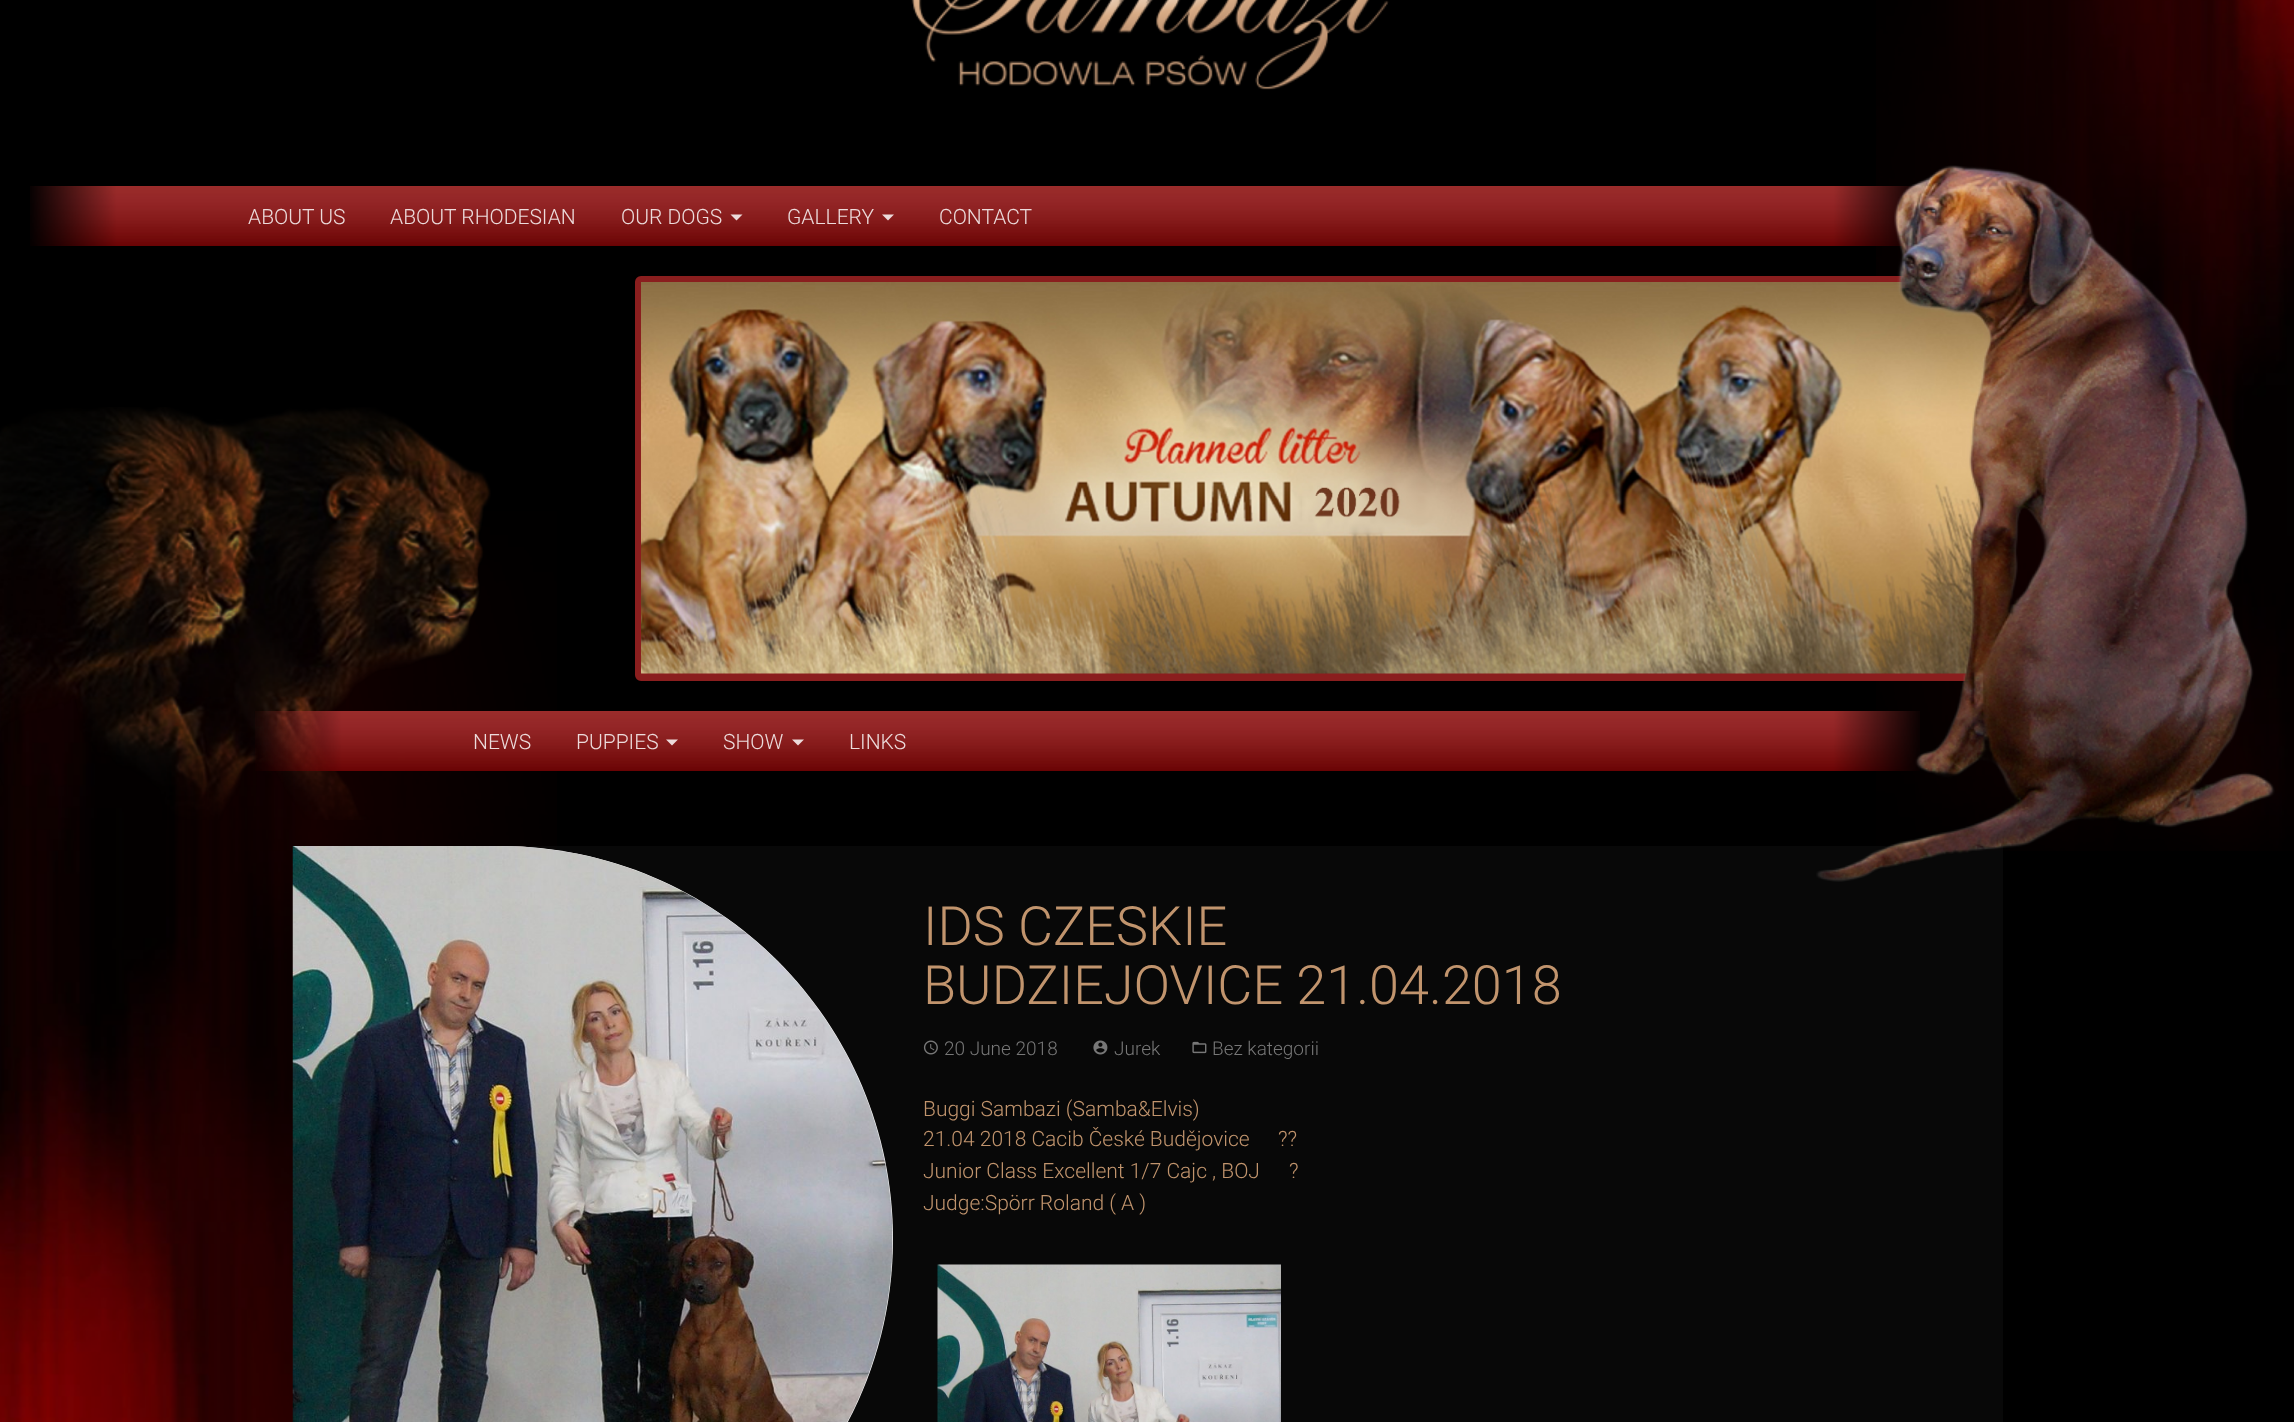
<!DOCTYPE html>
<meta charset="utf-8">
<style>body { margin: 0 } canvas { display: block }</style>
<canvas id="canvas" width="2294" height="1422"></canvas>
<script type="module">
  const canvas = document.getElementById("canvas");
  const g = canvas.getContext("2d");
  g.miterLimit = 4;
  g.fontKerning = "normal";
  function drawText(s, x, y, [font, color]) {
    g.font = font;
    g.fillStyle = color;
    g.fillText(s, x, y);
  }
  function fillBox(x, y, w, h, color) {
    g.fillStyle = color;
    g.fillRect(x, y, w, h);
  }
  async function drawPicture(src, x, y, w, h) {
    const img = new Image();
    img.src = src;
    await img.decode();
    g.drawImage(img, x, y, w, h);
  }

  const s1 = ["300 21px Roboto", "#ECDBDB"];
  const s2 = ["300 54px Roboto", "#C1946D"];
  const s3 = ["300 19px Roboto", "#777777"];
  const s4 = ["300 21px Roboto", "#C1946D"];

  fillBox(0, 0, 2294, 1422, "#000000");
  await drawPicture("pic1.png", 1876, 0, 418, 851);
  await drawPicture("pic4.png", 0, 511, 557, 911);
  await drawPicture("pic2.png", 0, 407, 491, 413);
  await drawPicture("pic8.png", 1770, 186, 150, 60);
  g.fillStyle = "#8A1E1E";
  g.beginPath();
  g.roundRect(638, 279, 1362, 399, 3);
  g.fill();
  g.strokeStyle = "#8A1E1E";
  g.lineWidth = 6;
  g.stroke();
  await drawPicture("pic9.png", 641, 282, 1356, 392);
  await drawPicture("pic12.png", 1770, 711, 150, 60);
  fillBox(502, 846, 1501, 576, "rgba(255, 255, 255, 0.03)");
  await drawPicture("pic3.png", 1816, 165, 459, 717);
  await drawPicture("pic5.png", 911, 0, 478, 90);
  await drawPicture("pic6.png", 180, 186, 1590, 60);
  await drawPicture("pic7.png", 30, 186, 150, 60);
  drawText("ABOUT US", 248, 224, s1);
  drawText("ABOUT RHODESIAN", 390, 224, s1);
  drawText("OUR DOGS", 621, 224, s1);
  g.beginPath();
  g.moveTo(730.5, 214.5);
  g.lineTo(742.5, 214.5);
  g.lineTo(736.5, 220.5);
  g.closePath();
  g.fill();
  drawText("GALLERY", 787, 224, s1);
  g.beginPath();
  g.moveTo(882, 214.5);
  g.lineTo(894, 214.5);
  g.lineTo(888, 220.5);
  g.closePath();
  g.fill();
  drawText("CONTACT", 939, 224, s1);
  await drawPicture("pic10.png", 405, 711, 1365, 60);
  await drawPicture("pic11.png", 255, 711, 150, 60);
  drawText("NEWS", 473, 749, s1);
  drawText("PUPPIES", 576, 749, s1);
  g.beginPath();
  g.moveTo(666, 739.5);
  g.lineTo(678, 739.5);
  g.lineTo(672, 745.5);
  g.closePath();
  g.fill();
  drawText("SHOW", 723, 749, s1);
  g.beginPath();
  g.moveTo(792, 739.5);
  g.lineTo(804, 739.5);
  g.lineTo(798, 745.5);
  g.closePath();
  g.fill();
  drawText("LINKS", 849, 749, s1);
  g.fillStyle = "#F4F4F4";
  g.beginPath();
  g.moveTo(293, 846);
  g.lineTo(500, 846);
  g.bezierCurveTo(717, 846, 893, 1022, 893, 1239);
  g.bezierCurveTo(893, 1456, 717, 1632, 500, 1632);
  g.lineTo(293, 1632);
  g.closePath();
  g.fill();
  await drawPicture("pic13.png", 292, 846, 601, 576);
  drawText("IDS CZESKIE", 923, 945, s2);
  drawText("BUDZIEJOVICE 21.04.2018", 923, 1004, s2);
  await drawPicture("pic14.png", 923, 1040, 15, 15);
  drawText("20 June 2018", 944, 1055, s3);
  await drawPicture("pic15.png", 1093, 1040, 15, 15);
  drawText("Jurek", 1114, 1055, s3);
  await drawPicture("pic16.png", 1192, 1041, 15, 13);
  drawText("Bez kategorii", 1212, 1055, s3);
  drawText("Buggi Sambazi (Samba&Elvis)", 923, 1116, s4);
  drawText("21.04 2018 Cacib České Budějovice", 923, 1146, s4);
  drawText("??", 1278, 1146, s4);
  drawText("Junior Class Excellent 1/7 Cajc , BOJ", 923, 1178, s4);
  drawText("?", 1289, 1178, s4);
  drawText("Judge:Spörr Roland ( A )", 923, 1210, s4);
  await drawPicture("pic17.png", 937, 1264, 344, 158);
</script>
